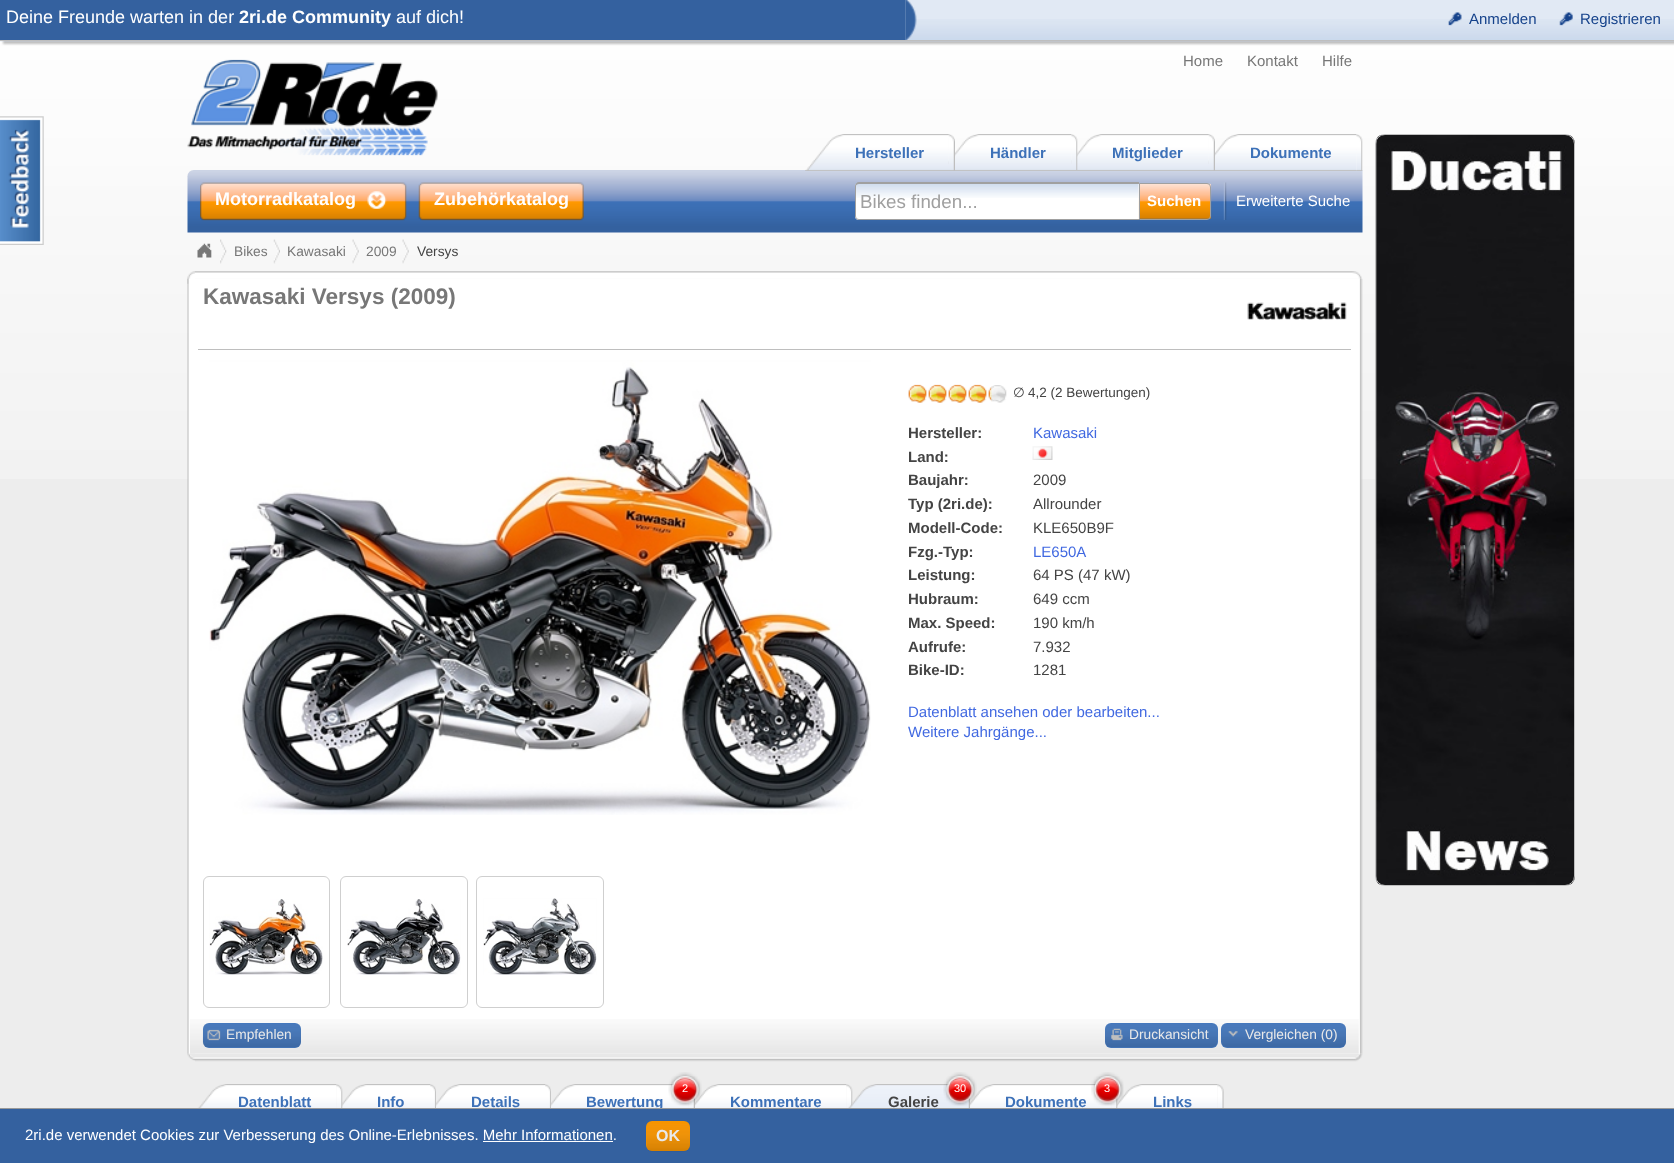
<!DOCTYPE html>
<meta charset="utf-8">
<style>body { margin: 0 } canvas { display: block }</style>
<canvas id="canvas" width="1674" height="1163"></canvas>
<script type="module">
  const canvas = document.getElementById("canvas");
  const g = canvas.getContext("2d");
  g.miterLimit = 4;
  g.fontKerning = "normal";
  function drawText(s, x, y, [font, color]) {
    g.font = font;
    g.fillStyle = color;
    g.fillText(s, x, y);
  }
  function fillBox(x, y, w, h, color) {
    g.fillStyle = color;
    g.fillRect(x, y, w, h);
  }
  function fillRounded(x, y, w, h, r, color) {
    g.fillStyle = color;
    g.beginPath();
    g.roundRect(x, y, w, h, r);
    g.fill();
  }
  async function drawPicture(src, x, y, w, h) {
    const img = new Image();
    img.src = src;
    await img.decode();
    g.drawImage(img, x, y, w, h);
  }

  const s1 = ["18px Liberation Sans", "#FFFFFF"];
  const s2 = ["bold 18px Liberation Sans", "#FFFFFF"];
  const s3 = ["15px Liberation Sans", "#15428B"];
  const s4 = ["15px Liberation Sans", "#777777"];
  const s5 = ["bold 15px Liberation Sans", "#3D71B8"];
  const s6 = ["18.75px Liberation Sans", "#A0A0A0"];
  const s7 = ["bold 15px Liberation Sans", "#FFFFFF"];
  const s8 = ["15px Liberation Sans", "#FFFFFF"];
  const s9 = ["13.75px Liberation Sans", "#777777"];
  const s10 = ["13.75px Liberation Sans", "#444444"];
  const s11 = ["bold 22.5px Liberation Sans", "#777777"];
  const s12 = ["13.5px DejaVu Sans", "#444444"];
  const s13 = ["13.5px Liberation Sans", "#444444"];
  const s14 = ["bold 15px Liberation Sans", "#444444"];
  const s15 = ["15px Liberation Sans", "#4169E1"];
  const s16 = ["15px Liberation Sans", "#444444"];
  const s17 = ["13.75px Liberation Sans", "#E9E9E9"];
  const s18 = ["11px Liberation Sans", "#FFFFFF"];
  const s19 = ["bold 16px Liberation Sans", "#E9E9E9"];

  fillBox(0, 0, 1674, 1163, "#EDEDED");
  await drawPicture("pic1.png", 0, 41, 1674, 438);
  g.fillStyle = "#BEBEBE";
  g.filter = "blur(1px)";
  g.beginPath();
  g.rect(3, 3, 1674, 41);
  g.fill();
  g.filter = "none";
  fillBox(905, 0, 769, 19, "#E1E9F4");
  await drawPicture("pic2.png", 0, 19, 1674, 23);
  fillBox(0, 40, 1674, 1, "#BEBEBE");
  fillBox(0, 0, 905, 40, "#34619F");
  drawText("Deine Freunde warten in der", 6, 23, s1);
  drawText("2ri.de Community", 239, 23, s2);
  drawText("auf dich!", 396, 23, s1);
  await drawPicture("pic3.png", 905, 0, 12, 40);
  await drawPicture("pic4.png", 1448, 12, 14, 14);
  drawText("Anmelden", 1469, 24, s3);
  await drawPicture("pic5.png", 1559, 12, 14, 14);
  drawText("Registrieren", 1580, 24, s3);
  await drawPicture("pic6.png", 0, 116, 44, 129);
  await drawPicture("pic7.png", 187, 59, 251, 97);
  drawText("Home", 1183, 66, s4);
  drawText("Kontakt", 1247, 66, s4);
  drawText("Hilfe", 1322, 66, s4);
  await drawPicture("pic16.png", 187, 170, 1176, 63);
  await drawPicture("pic14.png", 1208, 134, 149, 37);
  await drawPicture("pic12.png", 1071, 134, 138, 37);
  await drawPicture("pic10.png", 948, 134, 124, 37);
  await drawPicture("pic8.png", 805, 134, 144, 37);
  drawText("Hersteller", 855, 158, s5);
  await drawPicture("pic9.png", 948, 134, 7, 37);
  drawText("Händler", 990, 158, s5);
  await drawPicture("pic11.png", 1071, 134, 7, 36);
  drawText("Mitglieder", 1112, 158, s5);
  await drawPicture("pic13.png", 1208, 134, 7, 37);
  drawText("Dokumente", 1250, 158, s5);
  await drawPicture("pic15.png", 1356, 134, 7, 37);
  await drawPicture("pic17.png", 200, 182, 207, 39);
  drawText("Motorradkatalog", 215, 205, s2);
  await drawPicture("pic18.png", 367, 191, 20, 18);
  await drawPicture("pic19.png", 418, 182, 166, 39);
  drawText("Zubehörkatalog", 434, 205, s2);
  g.beginPath();
  g.roundRect(855, 183, 284, 37, [4, 0, 0, 4]);
  g.fill();
  await drawPicture("pic20.png", 855, 183, 284, 15);
  g.fillStyle = "#A0A0A0";
  g.beginPath();
  g.moveTo(859, 182);
  g.lineTo(1139, 182);
  g.lineTo(1139, 220);
  g.lineTo(859, 220);
  g.bezierCurveTo(857, 220, 855, 218, 855, 216);
  g.lineTo(855, 186);
  g.bezierCurveTo(855, 184, 857, 182, 859, 182);
  g.closePath();
  g.moveTo(859, 184);
  g.lineTo(1139, 184);
  g.lineTo(1139, 219);
  g.lineTo(859, 219);
  g.bezierCurveTo(857, 219, 856, 218, 856, 216);
  g.lineTo(856, 186);
  g.bezierCurveTo(856, 185, 857, 184, 859, 184);
  g.closePath();
  g.fill("evenodd");
  drawText("Bikes finden...", 860, 208, s6);
  await drawPicture("pic21.png", 1138, 183, 74, 36);
  g.beginPath();
  g.roundRect(1139.5, 183.5, 71, 36, [0, 3.5, 3.5, 0]);
  g.strokeStyle = "#A0A0A0";
  g.stroke();
  drawText("Suchen", 1147, 206, s7);
  await drawPicture("pic22.png", 1223, 182, 4, 38);
  drawText("Erweiterte Suche", 1236, 206, s8);
  await drawPicture("pic23.png", 1376, 135, 199, 750);
  g.beginPath();
  g.roundRect(1375.5, 134.5, 199, 751, 9.5);
  g.strokeStyle = "#BEBEBE";
  g.stroke();
  await drawPicture("pic24.png", 220, 239, 7, 25);
  await drawPicture("pic25.png", 197, 243, 15, 15);
  await drawPicture("pic26.png", 273, 239, 7, 25);
  drawText("Bikes", 234, 256, s9);
  await drawPicture("pic27.png", 352, 239, 7, 25);
  drawText("Kawasaki", 287, 256, s9);
  await drawPicture("pic27.png", 402, 239, 7, 25);
  drawText("2009", 366, 256, s9);
  drawText("Versys", 417, 256, s10);
  await drawPicture("pic28.png", 195, 271, 1167, 8);
  await drawPicture("pic29.png", 187, 271, 8, 13);
  await drawPicture("pic30.png", 188, 278, 1175, 776);
  await drawPicture("pic31.png", 187, 278, 2, 776);
  fillBox(190, 1053, 1169, 1, "#FFFFFF");
  await drawPicture("pic32.png", 190, 1019, 1169, 35);
  fillBox(198, 349, 1153, 1, "#BEBEBE");
  drawText("Kawasaki Versys (2009)", 203, 304, s11);
  await drawPicture("pic33.png", 1247, 302, 100, 18);
  await drawPicture("pic34.png", 209, 360, 662, 455);
  await drawPicture("pic35.png", 908, 385, 99, 18);
  await drawPicture("pic36.png", 908, 384, 84, 19);
  drawText("∅", 1013, 397, s12);
  drawText("4,2 (2 Bewertungen)", 1028, 397, s13);
  drawText("Hersteller:", 908, 438, s14);
  drawText("Kawasaki", 1033, 438, s15);
  drawText("Land:", 908, 462, s14);
  await drawPicture("pic37.png", 1032, 446, 21, 14);
  drawText("Baujahr:", 908, 485, s14);
  drawText("2009", 1033, 485, s16);
  drawText("Typ (2ri.de):", 908, 509, s14);
  drawText("Allrounder", 1033, 509, s16);
  drawText("Modell-Code:", 908, 533, s14);
  drawText("KLE650B9F", 1033, 533, s16);
  drawText("Fzg.-Typ:", 908, 557, s14);
  drawText("LE650A", 1033, 557, s15);
  drawText("Leistung:", 908, 580, s14);
  drawText("64 PS (47 kW)", 1033, 580, s16);
  drawText("Hubraum:", 908, 604, s14);
  drawText("649 ccm", 1033, 604, s16);
  drawText("Max. Speed:", 908, 628, s14);
  drawText("190 km/h", 1033, 628, s16);
  drawText("Aufrufe:", 908, 652, s14);
  drawText("7.932", 1033, 652, s16);
  drawText("Bike-ID:", 908, 675, s14);
  drawText("1281", 1033, 675, s16);
  drawText("Datenblatt ansehen oder bearbeiten...", 908, 717, s15);
  drawText("Weitere Jahrgänge...", 908, 737, s15);
  g.beginPath();
  g.roundRect(203.5, 876.5, 126, 131, 5.5);
  g.strokeStyle = "#CFCFCF";
  g.stroke();
  await drawPicture("pic38.png", 209, 899, 114, 76);
  g.beginPath();
  g.roundRect(340.5, 876.5, 127, 131, 5.5);
  g.stroke();
  await drawPicture("pic39.png", 347, 899, 114, 76);
  g.beginPath();
  g.roundRect(476.5, 876.5, 127, 131, 5.5);
  g.stroke();
  await drawPicture("pic40.png", 483, 898, 114, 77);
  fillRounded(203, 1023, 98, 25, 6, "#4578BD");
  await drawPicture("pic41.png", 202, 1024, 99, 24);
  await drawPicture("pic42.png", 207, 1029, 14, 12);
  drawText("Empfehlen", 226, 1039, s17);
  fillRounded(1105, 1023, 113, 25, 6, "#4578BD");
  await drawPicture("pic43.png", 1105, 1024, 113, 24);
  await drawPicture("pic44.png", 1111, 1028, 12, 13);
  drawText("Druckansicht", 1129, 1039, s17);
  fillRounded(1221, 1023, 125, 25, 6, "#4578BD");
  await drawPicture("pic45.png", 1221, 1024, 125, 24);
  await drawPicture("pic46.png", 1228, 1031, 10, 6);
  drawText("Vergleichen (0)", 1245, 1039, s17);
  await drawPicture("pic47.png", 195, 1054, 1168, 8);
  await drawPicture("pic48.png", 187, 1053, 8, 8);
  await drawPicture("pic57.png", 551, 1084, 138, 24);
  await drawPicture("pic58.png", 688, 1096, 7, 12);
  await drawPicture("pic59.png", 695, 1084, 152, 24);
  await drawPicture("pic49.png", 668, 1072, 34, 34);
  drawText("2", 682, 1092, s18);
  await drawPicture("pic60.png", 846, 1084, 7, 24);
  await drawPicture("pic61.png", 847, 1084, 117, 24);
  await drawPicture("pic62.png", 963, 1096, 7, 12);
  await drawPicture("pic63.png", 970, 1084, 142, 24);
  await drawPicture("pic50.png", 943, 1072, 34, 34);
  drawText("30", 954, 1092, s18);
  await drawPicture("pic65.png", 1117, 1084, 101, 24);
  await drawPicture("pic64.png", 1111, 1096, 7, 12);
  await drawPicture("pic51.png", 1091, 1072, 33, 34);
  drawText("3", 1104, 1092, s18);
  await drawPicture("pic52.png", 197, 1084, 140, 24);
  drawText("Datenblatt", 238, 1107, s5);
  await drawPicture("pic54.png", 342, 1084, 88, 24);
  await drawPicture("pic53.png", 336, 1084, 7, 24);
  drawText("Info", 377, 1107, s5);
  await drawPicture("pic55.png", 430, 1084, 6, 24);
  await drawPicture("pic56.png", 436, 1084, 109, 24);
  drawText("Details", 471, 1107, s5);
  await drawPicture("pic55.png", 545, 1084, 6, 24);
  drawText("Bewertung", 586, 1107, s5);
  drawText("Kommentare", 730, 1107, s5);
  drawText("Galerie", 888, 1107, s14);
  drawText("Dokumente", 1005, 1107, s5);
  drawText("Links", 1153, 1107, s5);
  await drawPicture("pic66.png", 1217, 1084, 7, 24);
  fillBox(0, 1109, 1674, 54, "#34619F");
  fillBox(0, 1108, 1674, 1, "#999999");
  drawText("2ri.de verwendet Cookies zur Verbesserung des Online-Erlebnisses. Mehr Informationen.", 25, 1140, s8);
  fillRounded(646, 1121, 44, 30, 6, "#F79400");
  await drawPicture("pic67.png", 646, 1124, 44, 28);
  drawText("OK", 656, 1141, s19);
  fillBox(483, 1141, 130, 1, "#FFFFFF");
</script>
